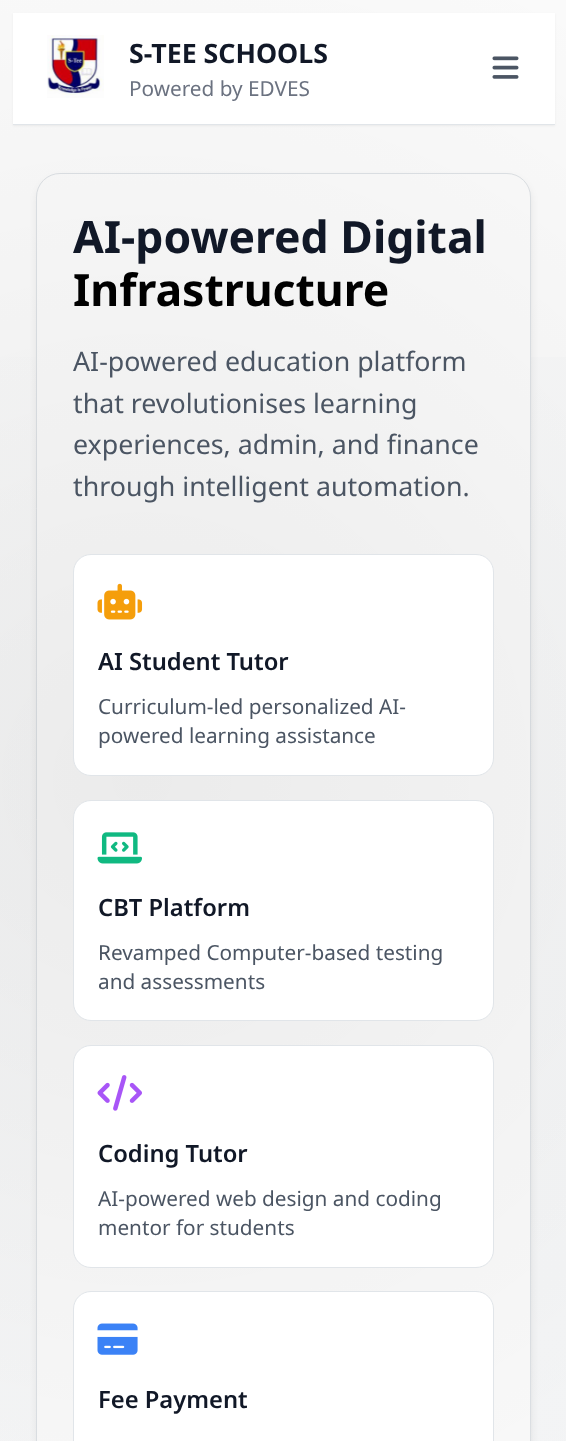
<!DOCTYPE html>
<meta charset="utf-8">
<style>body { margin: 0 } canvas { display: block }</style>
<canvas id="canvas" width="566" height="1441"></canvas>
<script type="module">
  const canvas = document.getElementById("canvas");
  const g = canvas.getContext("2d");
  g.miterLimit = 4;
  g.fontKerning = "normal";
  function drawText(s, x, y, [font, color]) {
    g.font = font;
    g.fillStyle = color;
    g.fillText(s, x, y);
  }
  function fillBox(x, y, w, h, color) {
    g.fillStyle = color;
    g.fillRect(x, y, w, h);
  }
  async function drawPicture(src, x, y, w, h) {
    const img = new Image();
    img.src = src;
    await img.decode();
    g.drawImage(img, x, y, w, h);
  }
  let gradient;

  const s1 = ["bold 26.75px Noto Sans", "#111827"];
  const s2 = ["20.75px Noto Sans", "#6B7280"];
  const s3 = ["bold 44.5px Noto Sans", "#111827"];
  const s4 = ["bold 44.5px Noto Sans", "#000000"];
  const s5 = ["26.75px Noto Sans", "#4B5563"];
  const s6 = ["600 23.75px Noto Sans", "#111827"];
  const s7 = ["20.75px Noto Sans", "#4B5563"];

  fillBox(0, 0, 566, 1441, "#FFFFFF");
  gradient = g.createLinearGradient(-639, 639, 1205, 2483);
  gradient.addColorStop(0, "#FFFFFF");
  gradient.addColorStop(0.5, "#FAFBFC");
  gradient.addColorStop(1, "#F7F8FA");
  g.fillStyle = gradient;
  g.fillRect(0, 357, 566, 1084);
  g.fillStyle = "rgba(0, 0, 0, 0.1)";
  g.filter = "blur(4px)";
  g.beginPath();
  g.roundRect(38, 179, 492, 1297, 23);
  g.fill();
  g.filter = "none";
  g.fillStyle = "#FFFFFF";
  g.beginPath();
  g.roundRect(36.5, 173.5, 494, 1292, 23.5);
  g.fill();
  g.strokeStyle = "#E1E5E9";
  g.stroke();
  gradient = g.createRadialGradient(142, 780, 0, 142, 780, 2379);
  gradient.addColorStop(0, "rgba(0, 0, 0, 0.08)");
  gradient.addColorStop(0.5, "rgba(0, 0, 0, 0)");
  g.fillStyle = gradient;
  g.fillRect(0, 0, 566, 1441);
  g.fillStyle = "rgba(0, 0, 0, 0.05)";
  g.filter = "blur(1px)";
  g.beginPath();
  g.rect(13, 14, 542, 112);
  g.fill();
  g.filter = "none";
  fillBox(13, 13, 542, 111, "#FFFFFF");
  fillBox(13, 124, 542, 1, "#E1E5E9");
  await drawPicture("pic1.png", 47, 35, 57, 63);
  drawText("S-TEE SCHOOLS", 129, 63, s1);
  drawText("Powered by EDVES", 129, 96, s2);
  await drawPicture("pic2.png", 492, 56, 27, 23);
  drawText("AI-powered Digital", 73, 253, s3);
  drawText("Infrastructure", 73, 306, s4);
  drawText("AI-powered education platform", 73, 371, s5);
  drawText("that revolutionises learning", 73, 413, s5);
  drawText("experiences, admin, and finance", 73, 454, s5);
  drawText("through intelligent automation.", 73, 496, s5);
  g.fillStyle = "#FFFFFF";
  g.beginPath();
  g.roundRect(73.5, 554.5, 420, 221, 17.5);
  g.fill();
  g.stroke();
  await drawPicture("pic3.png", 97, 583, 46, 37);
  drawText("AI Student Tutor", 98, 670, s6);
  drawText("Curriculum-led personalized AI-", 98, 714, s7);
  drawText("powered learning assistance", 98, 743, s7);
  g.fillStyle = "#FFFFFF";
  g.beginPath();
  g.roundRect(73.5, 800.5, 420, 220, 17.5);
  g.fill();
  g.stroke();
  await drawPicture("pic4.png", 97, 832, 45, 32);
  drawText("CBT Platform", 98, 916, s6);
  drawText("Revamped Computer-based testing", 98, 960, s7);
  drawText("and assessments", 98, 989, s7);
  g.fillStyle = "#FFFFFF";
  g.beginPath();
  g.roundRect(73.5, 1045.5, 420, 222, 17.5);
  g.fill();
  g.stroke();
  await drawPicture("pic5.png", 97, 1075, 45, 36);
  drawText("Coding Tutor", 98, 1162, s6);
  drawText("AI-powered web design and coding", 98, 1206, s7);
  drawText("mentor for students", 98, 1235, s7);
  g.fillStyle = "#FFFFFF";
  g.beginPath();
  g.roundRect(73.5, 1291.5, 420, 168, 17.5);
  g.fill();
  g.stroke();
  await drawPicture("pic6.png", 97, 1323, 41, 32);
  drawText("Fee Payment", 98, 1408, s6);
</script>
